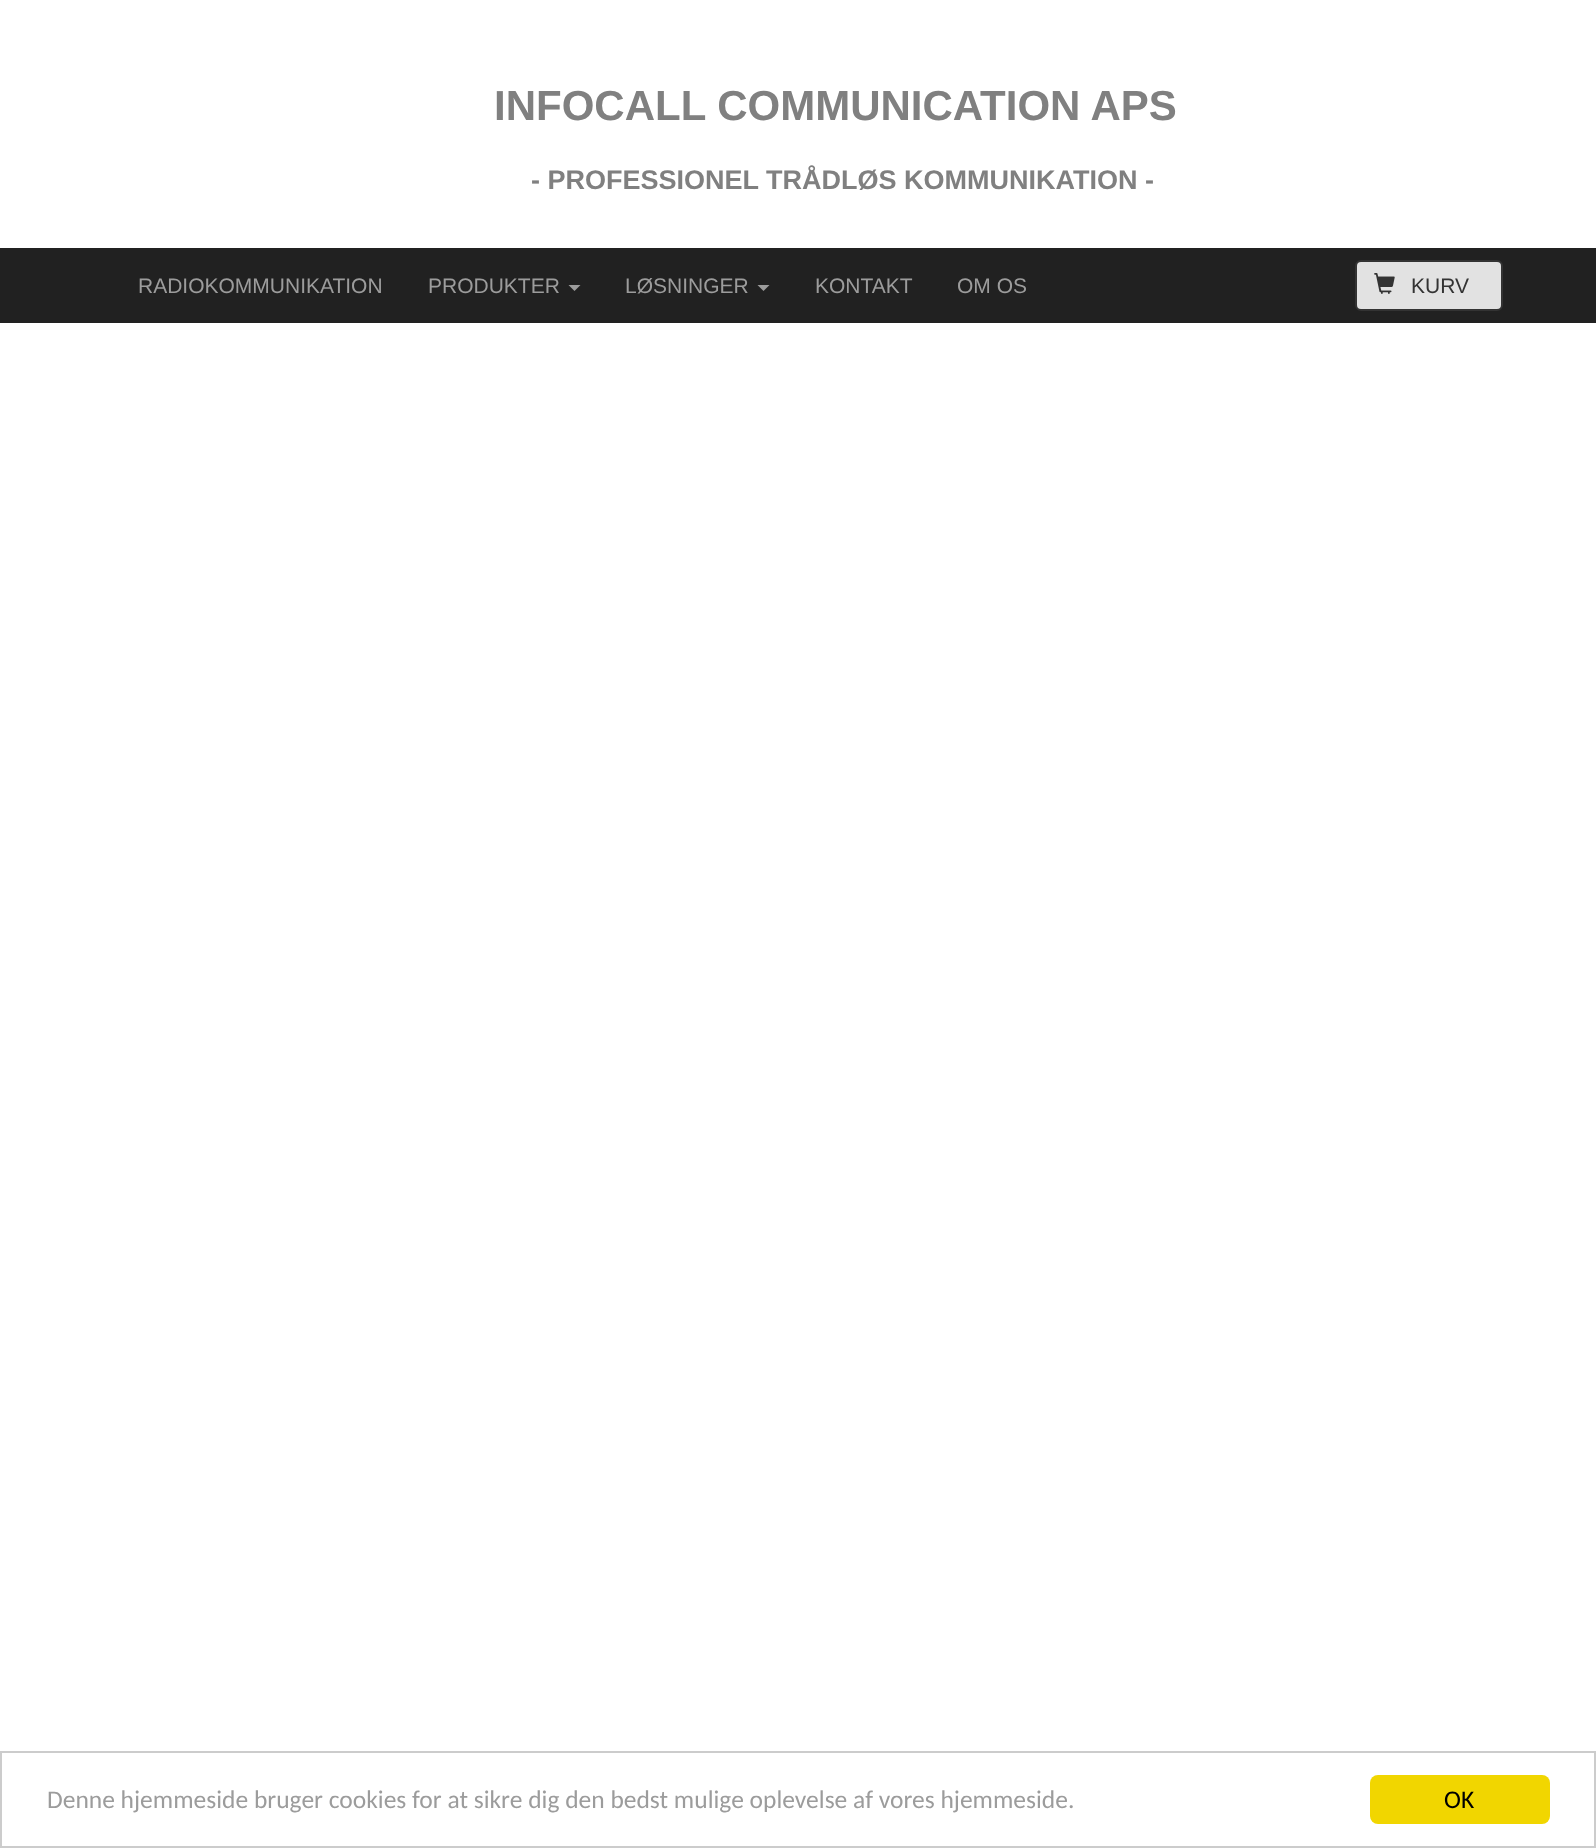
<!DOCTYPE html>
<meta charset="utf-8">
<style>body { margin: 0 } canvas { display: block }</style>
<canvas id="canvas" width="1596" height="1848"></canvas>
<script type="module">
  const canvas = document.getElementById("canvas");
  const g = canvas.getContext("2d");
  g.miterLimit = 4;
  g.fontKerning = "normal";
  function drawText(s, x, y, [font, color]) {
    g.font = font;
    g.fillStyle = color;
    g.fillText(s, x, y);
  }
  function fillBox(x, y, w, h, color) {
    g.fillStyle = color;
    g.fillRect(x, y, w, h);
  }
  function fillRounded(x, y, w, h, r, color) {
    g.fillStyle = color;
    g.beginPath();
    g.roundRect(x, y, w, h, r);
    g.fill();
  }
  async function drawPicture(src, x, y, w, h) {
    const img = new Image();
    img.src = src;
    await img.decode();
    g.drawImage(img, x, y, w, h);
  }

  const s1 = ["bold 42px Liberation Sans", "#808080"];
  const s2 = ["bold 27px Liberation Sans", "#808080"];
  const s3 = ["21px Liberation Sans", "#9C9C9C"];
  const s4 = ["21px Liberation Sans", "#333333"];
  const s5 = ["25.5px Carlito", "#9C9C9C"];
  const s6 = ["25.5px Carlito", "#000000"];

  fillBox(0, 0, 1596, 1848, "#FFFFFF");
  drawText("INFOCALL COMMUNICATION APS", 494, 120, s1);
  drawText("- PROFESSIONEL TRÅDLØS KOMMUNIKATION -", 531, 189, s2);
  fillBox(0, 248, 1596, 75, "#212121");
  drawText("RADIOKOMMUNIKATION", 138, 293, s3);
  drawText("PRODUKTER", 428, 293, s3);
  g.beginPath();
  g.moveTo(568.5, 285);
  g.lineTo(580.5, 285);
  g.lineTo(574.5, 291);
  g.closePath();
  g.fill();
  drawText("LØSNINGER", 625, 293, s3);
  g.beginPath();
  g.moveTo(757.5, 285);
  g.lineTo(769.5, 285);
  g.lineTo(763.5, 291);
  g.closePath();
  g.fill();
  drawText("KONTAKT", 815, 293, s3);
  drawText("OM OS", 957, 293, s3);
  g.fillStyle = "#E2E2E2";
  g.beginPath();
  g.roundRect(1356, 261, 146, 49, 5);
  g.fill();
  g.strokeStyle = "#333333";
  g.lineWidth = 2;
  g.stroke();
  await drawPicture("pic1.png", 1374, 273, 21, 21);
  drawText("KURV", 1411, 293, s4);
  g.strokeStyle = "#CCCCCC";
  g.strokeRect(1, 1752, 1594, 95);
  drawText("Denne hjemmeside bruger cookies for at sikre dig den bedst mulige oplevelse af vores hjemmeside.", 47, 1808, s5);
  fillRounded(1370, 1775, 180, 49, 8, "#F1D600");
  drawText("OK", 1444, 1808, s6);
</script>
